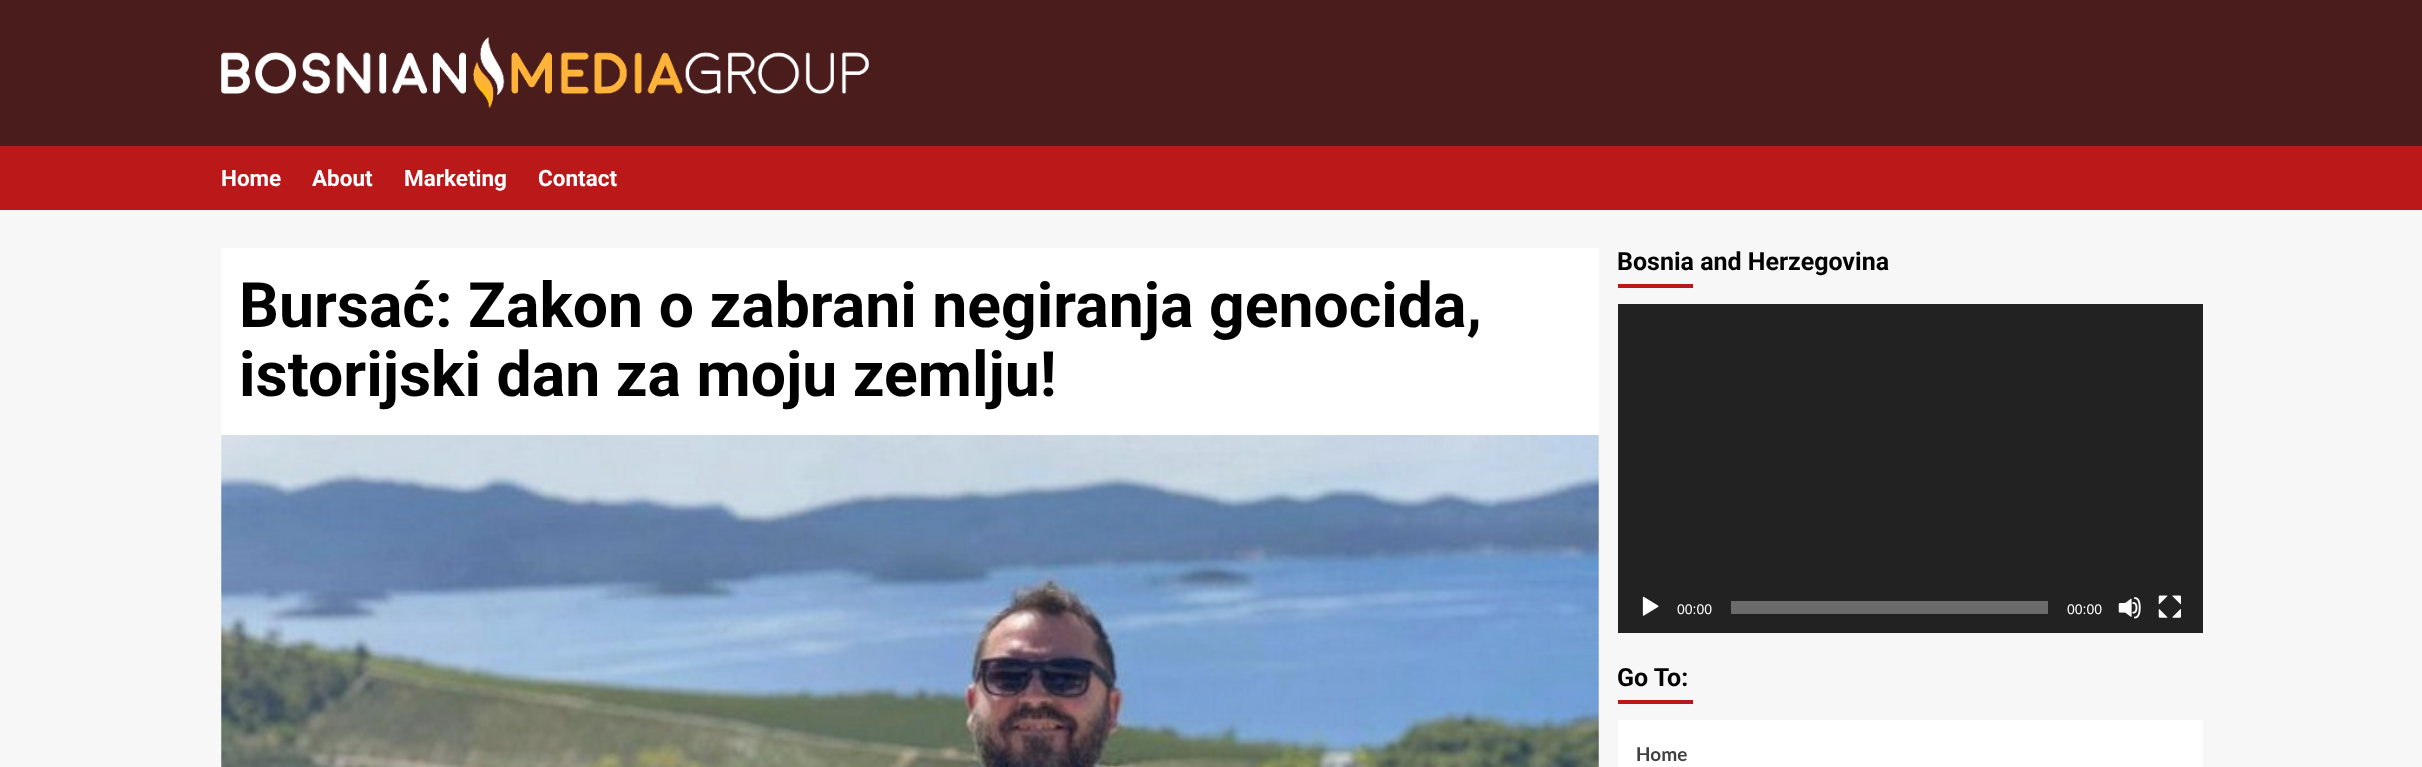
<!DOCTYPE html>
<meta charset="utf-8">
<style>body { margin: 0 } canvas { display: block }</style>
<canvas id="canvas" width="2422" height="767"></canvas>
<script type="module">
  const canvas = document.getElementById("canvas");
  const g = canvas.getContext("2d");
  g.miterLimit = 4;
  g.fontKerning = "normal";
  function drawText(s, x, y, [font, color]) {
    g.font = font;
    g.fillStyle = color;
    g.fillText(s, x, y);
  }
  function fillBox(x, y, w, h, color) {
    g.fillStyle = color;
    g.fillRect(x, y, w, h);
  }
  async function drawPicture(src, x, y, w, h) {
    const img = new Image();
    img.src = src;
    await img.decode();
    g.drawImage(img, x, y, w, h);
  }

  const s1 = ["bold 22.5px Roboto", "#FFFFFF"];
  const s2 = ["bold 62.5px Roboto", "#000000"];
  const s3 = ["bold 25px Roboto", "#000000"];
  const s4 = ["14px Liberation Sans", "#FFFFFF"];
  const s5 = ["bold 19px Lato", "#404040"];

  fillBox(0, 0, 2422, 767, "#F7F7F7");
  fillBox(0, 0, 2422, 146, "#4A1C1C");
  await drawPicture("pic1.png", 221, 37, 648, 72);
  fillBox(0, 146, 2422, 64, "#BB1919");
  drawText("Home", 221, 186, s1);
  drawText("About", 312, 186, s1);
  drawText("Marketing", 404, 186, s1);
  drawText("Contact", 538, 186, s1);
  fillBox(221, 248, 1378, 519, "#FFFFFF");
  drawText("Bursać: Zakon o zabrani negiranja genocida,", 239, 327, s2);
  drawText("istorijski dan za moju zemlju!", 239, 396, s2);
  await drawPicture("pic2.png", 221, 435, 1378, 332);
  drawText("Bosnia and Herzegovina", 1617, 270, s3);
  fillBox(1618, 284, 75, 4, "#BB1919");
  fillBox(1618, 304, 585, 329, "#222222");
  await drawPicture("pic3.png", 1642, 596, 17, 20);
  drawText("00:00", 1677, 614, s4);
  fillBox(1731, 601, 317, 13, "#6B6B6B");
  drawText("00:00", 2067, 614, s4);
  await drawPicture("pic4.png", 2118, 597, 23, 22);
  await drawPicture("pic5.png", 2158, 595, 23, 23);
  drawText("Go To:", 1617, 686, s3);
  fillBox(1618, 700, 75, 4, "#BB1919");
  fillBox(1618, 720, 585, 47, "#FFFFFF");
  drawText("Home", 1636, 761, s5);
</script>
